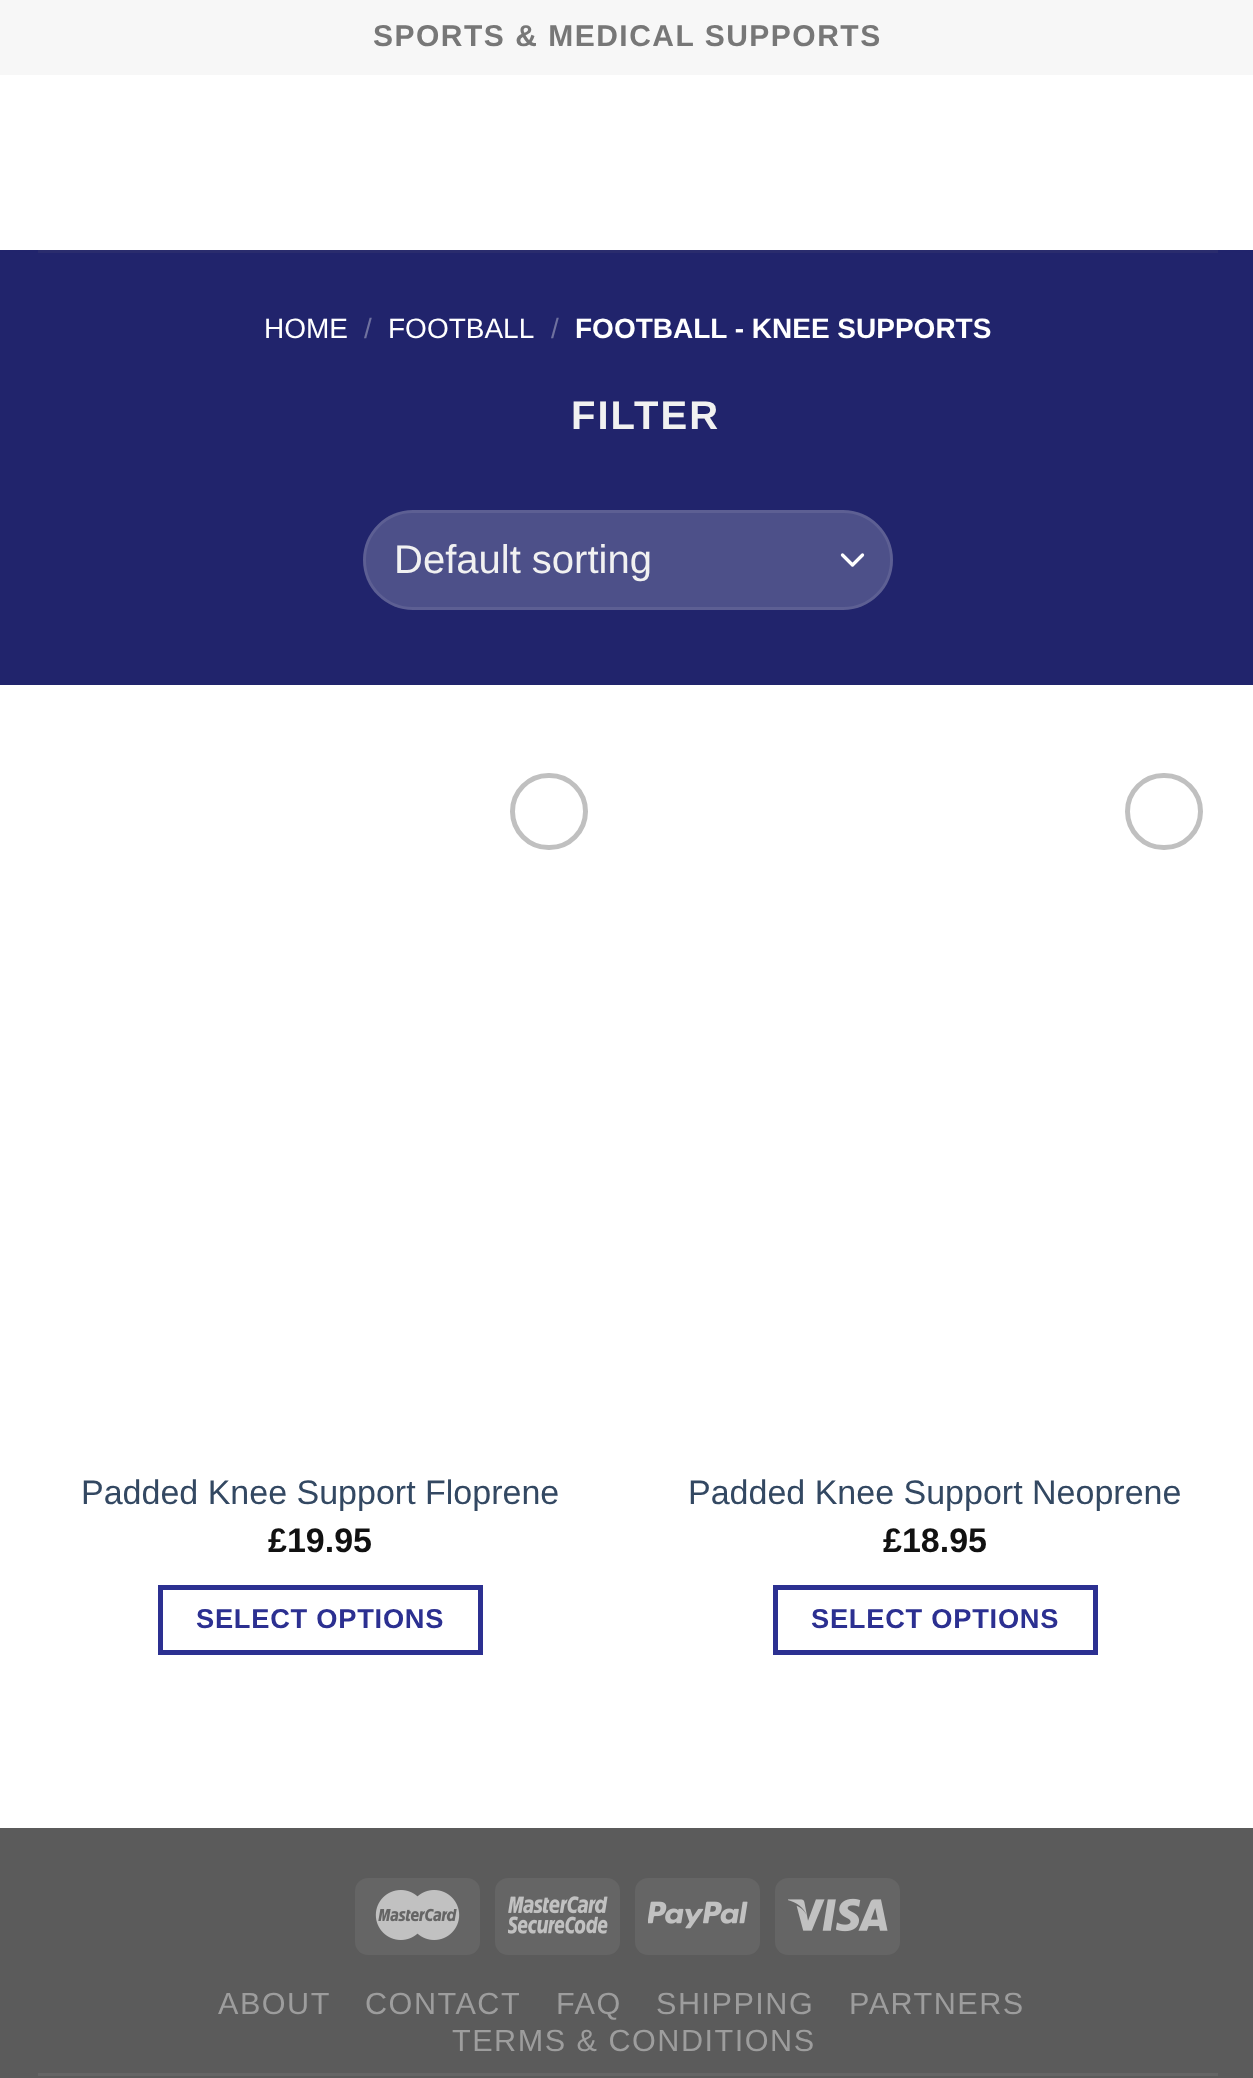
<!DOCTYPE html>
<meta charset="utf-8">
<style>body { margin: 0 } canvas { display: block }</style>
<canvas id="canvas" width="1253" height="2078"></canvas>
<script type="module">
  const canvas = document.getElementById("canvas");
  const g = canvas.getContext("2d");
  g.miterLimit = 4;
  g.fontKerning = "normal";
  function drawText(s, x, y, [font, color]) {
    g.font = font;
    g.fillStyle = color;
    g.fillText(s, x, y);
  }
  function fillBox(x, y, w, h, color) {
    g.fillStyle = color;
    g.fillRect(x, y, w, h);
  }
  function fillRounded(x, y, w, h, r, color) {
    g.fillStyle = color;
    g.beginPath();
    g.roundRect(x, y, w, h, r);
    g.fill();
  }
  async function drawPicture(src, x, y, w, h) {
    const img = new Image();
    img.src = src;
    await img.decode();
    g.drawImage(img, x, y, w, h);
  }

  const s1 = ["bold 30px Liberation Sans", "#777777"];
  const s2 = ["28px Liberation Sans", "#FFFFFF"];
  const s3 = ["28px Liberation Sans", "#6F719F"];
  const s4 = ["bold 28px Liberation Sans", "#FFFFFF"];
  const s5 = ["bold 40px Liberation Sans", "#F1F1F1"];
  const s6 = ["40px Liberation Sans", "#F1F1F1"];
  const s7 = ["34px Liberation Sans", "#334862"];
  const s8 = ["bold 34px Liberation Sans", "#111111"];
  const s9 = ["bold 27.25px Liberation Sans", "#2C3091"];
  const s10 = ["30.6px Liberation Sans", "#9D9D9D"];

  fillBox(0, 0, 1253, 2078, "#FFFFFF");
  fillBox(0, 0, 1253, 75, "#F7F7F7");
  g.letterSpacing = "1.5px";
  drawText("SPORTS & MEDICAL SUPPORTS", 373, 46, s1);
  fillBox(0, 250, 1253, 435, "#21246C");
  fillBox(38, 250, 1180, 3, "#2A2C6D");
  g.letterSpacing = "0px";
  drawText("HOME", 264, 338, s2);
  drawText("/", 364, 338, s3);
  drawText("FOOTBALL", 388, 338, s2);
  drawText("/", 551, 338, s3);
  drawText("FOOTBALL - KNEE SUPPORTS", 575, 338, s4);
  g.letterSpacing = "2px";
  drawText("FILTER", 571, 429, s5);
  fillRounded(363, 510, 530, 100, 50, "#4D5089");
  g.beginPath();
  g.moveTo(842.5, 555);
  g.lineTo(852.5, 565);
  g.lineTo(862.5, 555);
  g.strokeStyle = "#FFFFFF";
  g.lineWidth = 3.3;
  g.lineCap = "round";
  g.lineJoin = "round";
  g.stroke();
  g.beginPath();
  g.roundRect(364.5, 511.5, 527, 97, 48.5);
  g.strokeStyle = "rgba(255, 255, 255, 0.09)";
  g.lineWidth = 3;
  g.lineJoin = "miter";
  g.stroke();
  g.letterSpacing = "0px";
  drawText("Default sorting", 394, 573, s6);
  g.beginPath();
  g.roundRect(512.5, 775.5, 73, 72, 36);
  g.strokeStyle = "#C0C0C0";
  g.lineWidth = 5;
  g.stroke();
  drawText("Padded Knee Support Floprene", 81, 1504, s7);
  drawText("£19.95", 268, 1552, s8);
  g.strokeStyle = "#2C3091";
  g.strokeRect(160.5, 1587.5, 320, 65);
  g.letterSpacing = "0.75px";
  drawText("SELECT OPTIONS", 196, 1628, s9);
  g.beginPath();
  g.roundRect(1127.5, 775.5, 73, 72, 36);
  g.strokeStyle = "#C0C0C0";
  g.stroke();
  g.letterSpacing = "0px";
  drawText("Padded Knee Support Neoprene", 688, 1504, s7);
  drawText("£18.95", 883, 1552, s8);
  g.strokeStyle = "#2C3091";
  g.strokeRect(775.5, 1587.5, 320, 65);
  g.letterSpacing = "0.75px";
  drawText("SELECT OPTIONS", 811, 1628, s9);
  fillBox(0, 1828, 1253, 250, "#5B5B5B");
  fillRounded(355, 1878, 125, 77, 13, "#656565");
  await drawPicture("pic1.png", 375, 1890, 85, 50);
  fillRounded(495, 1878, 125, 77, 13, "#656565");
  await drawPicture("pic2.png", 508, 1896, 100, 38);
  fillRounded(635, 1878, 125, 77, 13, "#656565");
  await drawPicture("pic3.png", 648, 1901, 100, 28);
  fillRounded(775, 1878, 125, 77, 13, "#656565");
  await drawPicture("pic4.png", 788, 1898, 100, 34);
  fillBox(38, 2073, 1180, 3, "#656565");
  g.letterSpacing = "1.5px";
  drawText("ABOUT", 218, 2014, s10);
  drawText("CONTACT", 365, 2014, s10);
  drawText("FAQ", 556, 2014, s10);
  drawText("SHIPPING", 656, 2014, s10);
  drawText("PARTNERS", 849, 2014, s10);
  drawText("TERMS & CONDITIONS", 452, 2051, s10);
</script>
